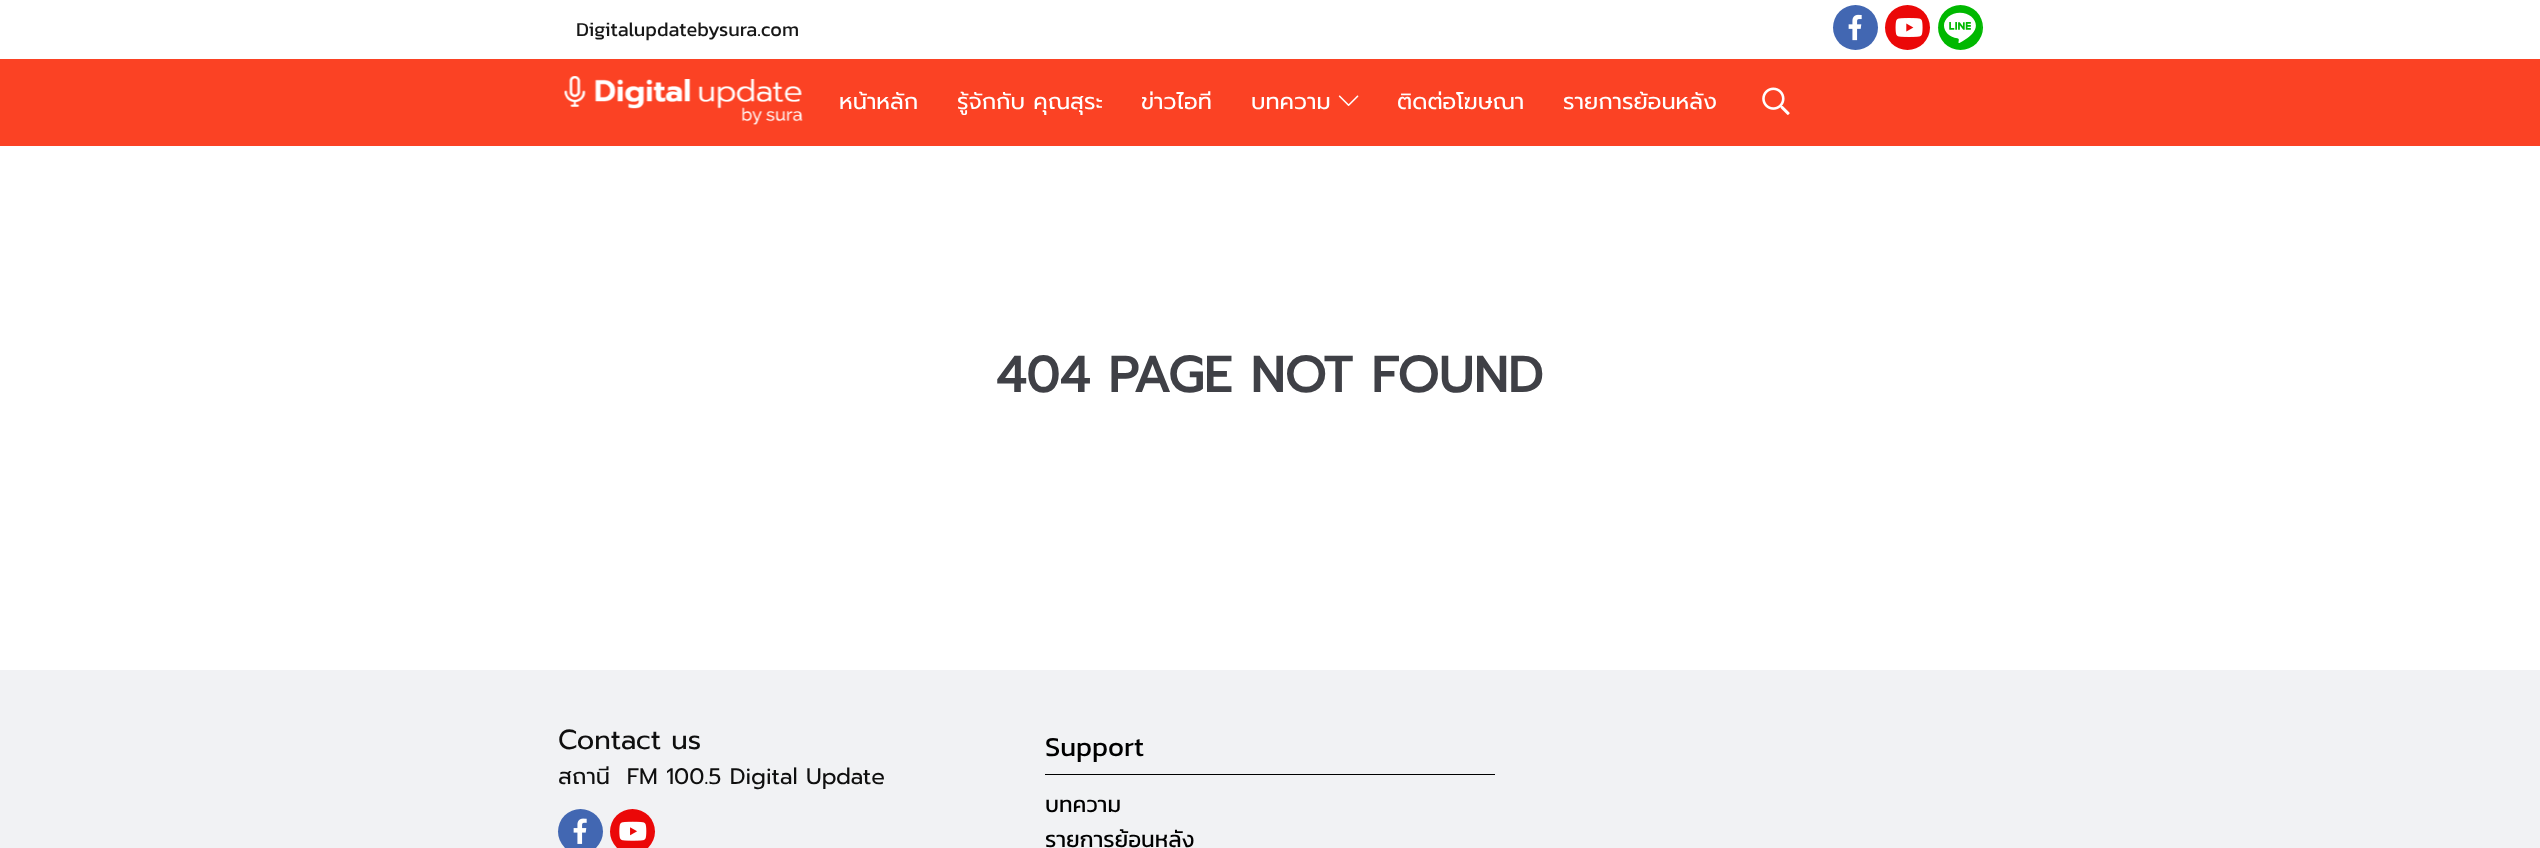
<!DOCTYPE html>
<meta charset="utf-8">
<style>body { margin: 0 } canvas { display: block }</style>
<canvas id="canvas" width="2540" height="848"></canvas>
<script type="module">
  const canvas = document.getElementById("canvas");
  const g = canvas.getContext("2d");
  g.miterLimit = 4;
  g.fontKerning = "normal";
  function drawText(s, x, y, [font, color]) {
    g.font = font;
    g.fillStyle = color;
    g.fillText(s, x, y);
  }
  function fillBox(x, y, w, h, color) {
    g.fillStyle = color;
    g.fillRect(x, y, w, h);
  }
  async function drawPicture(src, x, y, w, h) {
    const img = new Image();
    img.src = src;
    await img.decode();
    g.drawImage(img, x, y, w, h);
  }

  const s1 = ["20px Kanit", "#171717"];
  const s2 = ["22.5px Prompt", "#FFFFFF"];
  const s3 = ["bold 50px Prompt", "#3F4046"];
  const s4 = ["27.5px Prompt", "#0F0F0F"];
  const s5 = ["22.5px Prompt", "#0F0F0F"];
  const s6 = ["27.5px Kanit", "#000000"];
  const s7 = ["22.5px Kanit", "#000000"];

  fillBox(0, 0, 2540, 848, "#FFFFFF");
  fillBox(0, 59, 2540, 87, "#FB4224");
  drawText("Digitalupdatebysura.com", 576, 36, s1);
  g.fillStyle = "#4267B2";
  g.beginPath();
  g.arc(1855.5, 27.5, 22.5, 0, Math.PI * 2);
  g.fill();
  await drawPicture("pic1.png", 1848, 14, 14, 27);
  g.fillStyle = "#EB0808";
  g.beginPath();
  g.arc(1907.5, 27.5, 22.5, 0, Math.PI * 2);
  g.fill();
  await drawPicture("pic2.png", 1895, 18, 28, 19);
  g.fillStyle = "#00B800";
  g.beginPath();
  g.arc(1960.5, 27.5, 22.5, 0, Math.PI * 2);
  g.fill();
  await drawPicture("pic3.png", 1938, 5, 44, 45);
  await drawPicture("pic4.png", 564, 76, 239, 49);
  drawText("หน้าหลัก", 839, 109, s2);
  drawText("รู้จักกับ คุณสุระ", 957, 109, s2);
  drawText("ข่าวไอที", 1141, 109, s2);
  drawText("บทความ", 1251, 109, s2);
  await drawPicture("pic5.png", 1338, 95, 21, 11);
  drawText("ติดต่อโฆษณา", 1397, 109, s2);
  drawText("รายการย้อนหลัง", 1563, 109, s2);
  await drawPicture("pic6.png", 1762, 87, 28, 28);
  drawText("404 PAGE NOT FOUND", 996, 392, s3);
  fillBox(0, 670, 2540, 178, "#F1F2F4");
  drawText("Contact us", 558, 749, s4);
  drawText("สถานี  FM 100.5 Digital Update", 558, 784, s5);
  g.fillStyle = "#4267B2";
  g.beginPath();
  g.arc(580.5, 831.5, 22.5, 0, Math.PI * 2);
  g.fill();
  await drawPicture("pic7.png", 573, 818, 14, 26);
  g.fillStyle = "#EB0808";
  g.beginPath();
  g.arc(632.5, 831.5, 22.5, 0, Math.PI * 2);
  g.fill();
  await drawPicture("pic8.png", 619, 821, 28, 20);
  fillBox(1045, 774, 450, 1, "#000000");
  drawText("Support", 1045, 756, s6);
  drawText("บทความ", 1045, 812, s7);
  drawText("รายการย้อนหลัง", 1045, 847, s7);
</script>
